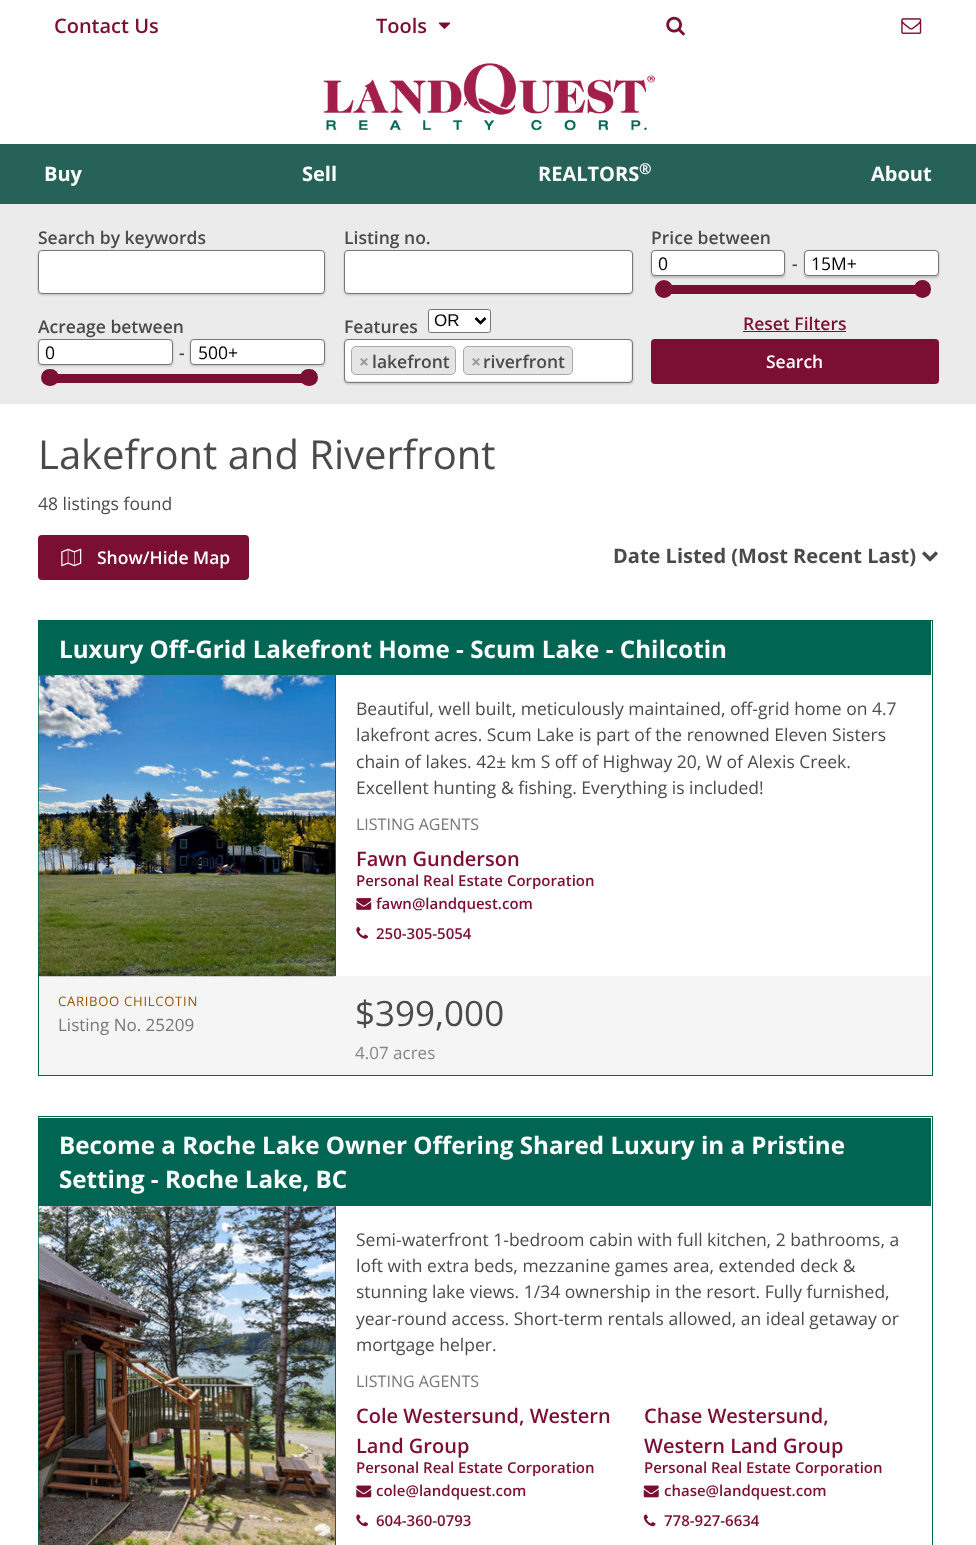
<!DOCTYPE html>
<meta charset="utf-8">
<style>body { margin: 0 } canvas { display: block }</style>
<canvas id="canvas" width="976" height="1545"></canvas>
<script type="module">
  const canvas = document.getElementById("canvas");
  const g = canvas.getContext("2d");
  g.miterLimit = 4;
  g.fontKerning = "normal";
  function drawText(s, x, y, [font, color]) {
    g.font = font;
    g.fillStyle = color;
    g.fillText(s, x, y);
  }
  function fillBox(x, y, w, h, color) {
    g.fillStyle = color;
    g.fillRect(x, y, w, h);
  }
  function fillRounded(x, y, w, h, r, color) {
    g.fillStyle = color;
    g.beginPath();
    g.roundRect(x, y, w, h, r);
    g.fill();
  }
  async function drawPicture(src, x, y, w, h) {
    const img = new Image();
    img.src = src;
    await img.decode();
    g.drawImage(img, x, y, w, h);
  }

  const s1 = ["600 20px Open Sans", "#7B0F33"];
  const s2 = ["bold 20px Open Sans", "#FFFFFF"];
  const s3 = ["bold 15px Open Sans", "#FFFFFF"];
  const s4 = ["600 17.5px Open Sans", "#4A4A4A"];
  const s5 = ["17.5px Open Sans", "#000000"];
  const s6 = ["17px Liberation Sans", "#000000"];
  const s7 = ["bold 17.5px Open Sans", "#999999"];
  const s8 = ["600 17.5px Open Sans", "#7B0F33"];
  const s9 = ["600 17.5px Open Sans", "#FFFFFF"];
  const s10 = ["40px Open Sans", "#4A4A4A"];
  const s11 = ["17.5px Open Sans", "#4A4A4A"];
  const s12 = ["bold 20px Open Sans", "#4A4A4A"];
  const s13 = ["bold 24.2px Open Sans", "#FFFFFF"];
  const s14 = ["16px Open Sans", "#777777"];
  const s15 = ["600 15px Open Sans", "#7B0F33"];
  const s16 = ["13.1px Open Sans", "#945600"];
  const s17 = ["17px Open Sans", "#777777"];
  const s18 = ["35px Open Sans", "#4A4A4A"];
  const s19 = ["17px Open Sans", "#868686"];

  fillBox(0, 0, 976, 1545, "#FFFFFF");
  drawText("Contact Us", 54, 33, s1);
  drawText("Tools", 376, 33, s1);
  await drawPicture("pic1.png", 438, 22, 13, 7);
  await drawPicture("pic2.png", 666, 16, 19, 20);
  await drawPicture("pic3.png", 901, 18, 21, 16);
  await drawPicture("pic4.png", 323, 63, 332, 68);
  fillBox(0, 144, 976, 60, "#266257");
  drawText("Buy", 44, 181, s2);
  drawText("Sell", 302, 181, s2);
  drawText("REALTORS", 538, 181, s2);
  drawText("®", 639, 174, s3);
  drawText("About", 871, 181, s2);
  fillBox(0, 204, 976, 200, "#EBEBEB");
  drawText("Search by keywords", 38, 244, s4);
  g.fillStyle = "rgba(0, 0, 0, 0.2)";
  g.filter = "blur(1px)";
  g.beginPath();
  g.roundRect(38, 251, 287, 44, 4);
  g.fill();
  g.filter = "none";
  g.fillStyle = "#FFFFFF";
  g.beginPath();
  g.roundRect(38.5, 250.5, 286, 43, 3.5);
  g.fill();
  g.strokeStyle = "#777777";
  g.stroke();
  drawText("Listing no.", 344, 244, s4);
  g.fillStyle = "rgba(0, 0, 0, 0.2)";
  g.filter = "blur(1px)";
  g.beginPath();
  g.roundRect(344, 251, 289, 44, 4);
  g.fill();
  g.filter = "none";
  g.fillStyle = "#FFFFFF";
  g.beginPath();
  g.roundRect(344.5, 250.5, 288, 43, 3.5);
  g.fill();
  g.stroke();
  drawText("Price between", 651, 244, s4);
  g.fillStyle = "rgba(0, 0, 0, 0.2)";
  g.filter = "blur(1px)";
  g.beginPath();
  g.roundRect(651, 251, 134, 27, 4);
  g.fill();
  g.filter = "none";
  g.fillStyle = "#FFFFFF";
  g.beginPath();
  g.roundRect(651.5, 250.5, 133, 25, 3.5);
  g.fill();
  g.stroke();
  drawText("0", 658, 270, s5);
  drawText("-", 792, 270, s4);
  g.fillStyle = "rgba(0, 0, 0, 0.2)";
  g.filter = "blur(1px)";
  g.beginPath();
  g.roundRect(804, 251, 135, 27, 4);
  g.fill();
  g.filter = "none";
  g.fillStyle = "#FFFFFF";
  g.beginPath();
  g.roundRect(804.5, 250.5, 134, 25, 3.5);
  g.fill();
  g.stroke();
  drawText("15M+", 811, 270, s5);
  fillBox(671, 285, 245, 9, "#7B0F33");
  g.beginPath();
  g.arc(664, 289, 9, 0, Math.PI * 2);
  g.fill();
  fillRounded(914, 280, 17, 18, 8.5, "#7B0F33");
  drawText("Acreage between", 38, 333, s4);
  g.fillStyle = "rgba(0, 0, 0, 0.2)";
  g.filter = "blur(1px)";
  g.beginPath();
  g.roundRect(38, 340, 135, 26, 4);
  g.fill();
  g.filter = "none";
  g.fillStyle = "#FFFFFF";
  g.beginPath();
  g.roundRect(38.5, 339.5, 134, 25, 3.5);
  g.fill();
  g.stroke();
  drawText("0", 45, 359, s5);
  drawText("-", 179, 359, s4);
  g.fillStyle = "rgba(0, 0, 0, 0.2)";
  g.filter = "blur(1px)";
  g.beginPath();
  g.roundRect(190, 340, 135, 26, 4);
  g.fill();
  g.filter = "none";
  g.fillStyle = "#FFFFFF";
  g.beginPath();
  g.roundRect(190.5, 339.5, 134, 25, 3.5);
  g.fill();
  g.stroke();
  drawText("500+", 198, 359, s5);
  fillBox(57, 374, 245, 9, "#7B0F33");
  fillRounded(41, 369, 18, 17, 8.5, "#7B0F33");
  fillRounded(300, 369, 18, 17, 8.5, "#7B0F33");
  drawText("Features", 344, 333, s4);
  g.fillStyle = "#FFFFFF";
  g.beginPath();
  g.roundRect(428.5, 309.5, 62, 23, 2);
  g.fill();
  g.strokeStyle = "#767676";
  g.stroke();
  g.beginPath();
  g.moveTo(475.5, 318);
  g.lineTo(480.5, 323);
  g.lineTo(485.5, 318);
  g.strokeStyle = "#000000";
  g.lineWidth = 2.5;
  g.stroke();
  drawText("OR", 434, 326, s6);
  g.save();
  g.beginPath();
  g.moveTo(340, 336);
  g.lineTo(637, 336);
  g.lineTo(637, 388);
  g.lineTo(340, 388);
  g.closePath();
  g.moveTo(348, 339);
  g.lineTo(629, 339);
  g.bezierCurveTo(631, 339, 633, 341, 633, 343);
  g.lineTo(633, 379);
  g.bezierCurveTo(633, 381, 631, 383, 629, 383);
  g.lineTo(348, 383);
  g.bezierCurveTo(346, 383, 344, 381, 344, 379);
  g.lineTo(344, 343);
  g.bezierCurveTo(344, 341, 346, 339, 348, 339);
  g.closePath();
  g.clip("evenodd");
  g.fillStyle = "rgba(0, 0, 0, 0.2)";
  g.filter = "blur(1px)";
  g.beginPath();
  g.roundRect(344, 340, 289, 44, 4);
  g.fill();
  g.filter = "none";
  g.restore();
  g.fillStyle = "#FFFFFF";
  g.beginPath();
  g.moveTo(348, 342);
  g.lineTo(629, 342);
  g.bezierCurveTo(630, 342, 631, 344, 631, 345);
  g.bezierCurveTo(631, 343, 631, 340, 628, 340);
  g.lineTo(348, 340);
  g.bezierCurveTo(345, 340, 345, 343, 345, 345);
  g.bezierCurveTo(345, 344, 346, 342, 348, 342);
  g.closePath();
  g.fill();
  g.beginPath();
  g.roundRect(344.5, 339.5, 288, 43, 3.5);
  g.strokeStyle = "#777777";
  g.lineWidth = 1;
  g.stroke();
  fillRounded(345, 340, 286, 41, 5, "#FFFFFF");
  g.fillStyle = "#E4E4E4";
  g.beginPath();
  g.roundRect(351.5, 346.5, 104, 28, 4.5);
  g.fill();
  g.strokeStyle = "#AAAAAA";
  g.stroke();
  drawText("×", 359, 368, s7);
  drawText("lakefront", 372, 368, s4);
  g.fillStyle = "#E4E4E4";
  g.beginPath();
  g.roundRect(463.5, 346.5, 109, 28, 4.5);
  g.fill();
  g.stroke();
  drawText("×", 471, 368, s7);
  drawText("riverfront", 483, 368, s4);
  drawText("Reset Filters", 743, 330, s8);
  fillBox(743, 331, 103, 1, "#7B0F33");
  fillRounded(651, 339, 288, 45, 4, "#7B0F33");
  drawText("Search", 766, 368, s9);
  drawText("Lakefront and Riverfront", 38, 469, s10);
  drawText("48 listings found", 38, 510, s11);
  fillRounded(38, 535, 211, 45, 4, "#7B0F33");
  await drawPicture("pic5.png", 61, 548, 21, 19);
  drawText("Show/Hide Map", 97, 564, s9);
  drawText("Date Listed (Most Recent Last)", 613, 563, s12);
  await drawPicture("pic6.png", 922, 551, 16, 11);
  g.strokeStyle = "#006553";
  g.strokeRect(38.5, 620.5, 894, 455);
  fillBox(39, 621, 892, 54, "#006553");
  drawText("Luxury Off-Grid Lakefront Home - Scum Lake - Chilcotin", 59, 658, s13);
  fillBox(335, 675, 1, 301, "#006553");
  fillBox(39, 976, 892, 99, "#F5F5F5");
  await drawPicture("pic7.png", 38, 675, 297, 302);
  drawText("Beautiful, well built, meticulously maintained, off-grid home on 4.7", 356, 715, s11);
  drawText("lakefront acres. Scum Lake is part of the renowned Eleven Sisters", 356, 741, s11);
  drawText("chain of lakes. 42± km S off of Highway 20, W of Alexis Creek.", 356, 768, s11);
  drawText("Excellent hunting & fishing. Everything is included!", 356, 794, s11);
  drawText("LISTING AGENTS", 356, 830, s14);
  drawText("Fawn Gunderson", 356, 866, s1);
  g.save();
  g.beginPath();
  g.rect(356, 874, 555, 15);
  g.clip();
  drawText("Personal Real Estate Corporation", 356, 886, s15);
  g.restore();
  await drawPicture("pic8.png", 356, 898, 16, 12);
  drawText("fawn@landquest.com", 376, 909, s15);
  await drawPicture("pic9.png", 356, 927, 12, 12);
  drawText("250-305-5054", 376, 939, s15);
  g.letterSpacing = "0.7px";
  drawText("CARIBOO CHILCOTIN", 58, 1006, s16);
  g.letterSpacing = "0px";
  drawText("Listing No. 25209", 58, 1031, s17);
  drawText("$399,000", 355, 1026, s18);
  drawText("4.07 acres", 355, 1059, s19);
  g.strokeRect(38.5, 1116.5, 894, 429);
  fillBox(39, 1118, 892, 88, "#006553");
  drawText("Become a Roche Lake Owner Offering Shared Luxury in a Pristine", 59, 1154, s13);
  drawText("Setting - Roche Lake, BC", 59, 1188, s13);
  fillBox(335, 1206, 1, 339, "#006553");
  await drawPicture("pic10.png", 38, 1206, 297, 339);
  drawText("Semi-waterfront 1-bedroom cabin with full kitchen, 2 bathrooms, a", 356, 1246, s11);
  drawText("loft with extra beds, mezzanine games area, extended deck &", 356, 1272, s11);
  drawText("stunning lake views. 1/34 ownership in the resort. Fully furnished,", 356, 1298, s11);
  drawText("year-round access. Short-term rentals allowed, an ideal getaway or", 356, 1325, s11);
  drawText("mortgage helper.", 356, 1351, s11);
  drawText("LISTING AGENTS", 356, 1387, s14);
  drawText("Cole Westersund, Western", 356, 1423, s1);
  drawText("Land Group", 356, 1453, s1);
  g.save();
  g.beginPath();
  g.rect(356, 1461, 268, 15);
  g.clip();
  drawText("Personal Real Estate Corporation", 356, 1473, s15);
  g.restore();
  await drawPicture("pic11.png", 356, 1485, 16, 13);
  drawText("cole@landquest.com", 376, 1496, s15);
  await drawPicture("pic12.png", 356, 1514, 12, 13);
  drawText("604-360-0793", 376, 1526, s15);
  drawText("Chase Westersund,", 644, 1423, s1);
  drawText("Western Land Group", 644, 1453, s1);
  g.save();
  g.beginPath();
  g.rect(644, 1461, 267, 15);
  g.clip();
  drawText("Personal Real Estate Corporation", 644, 1473, s15);
  g.restore();
  await drawPicture("pic13.png", 643, 1485, 16, 13);
  drawText("chase@landquest.com", 664, 1496, s15);
  await drawPicture("pic14.png", 643, 1514, 13, 13);
  drawText("778-927-6634", 664, 1526, s15);
</script>
